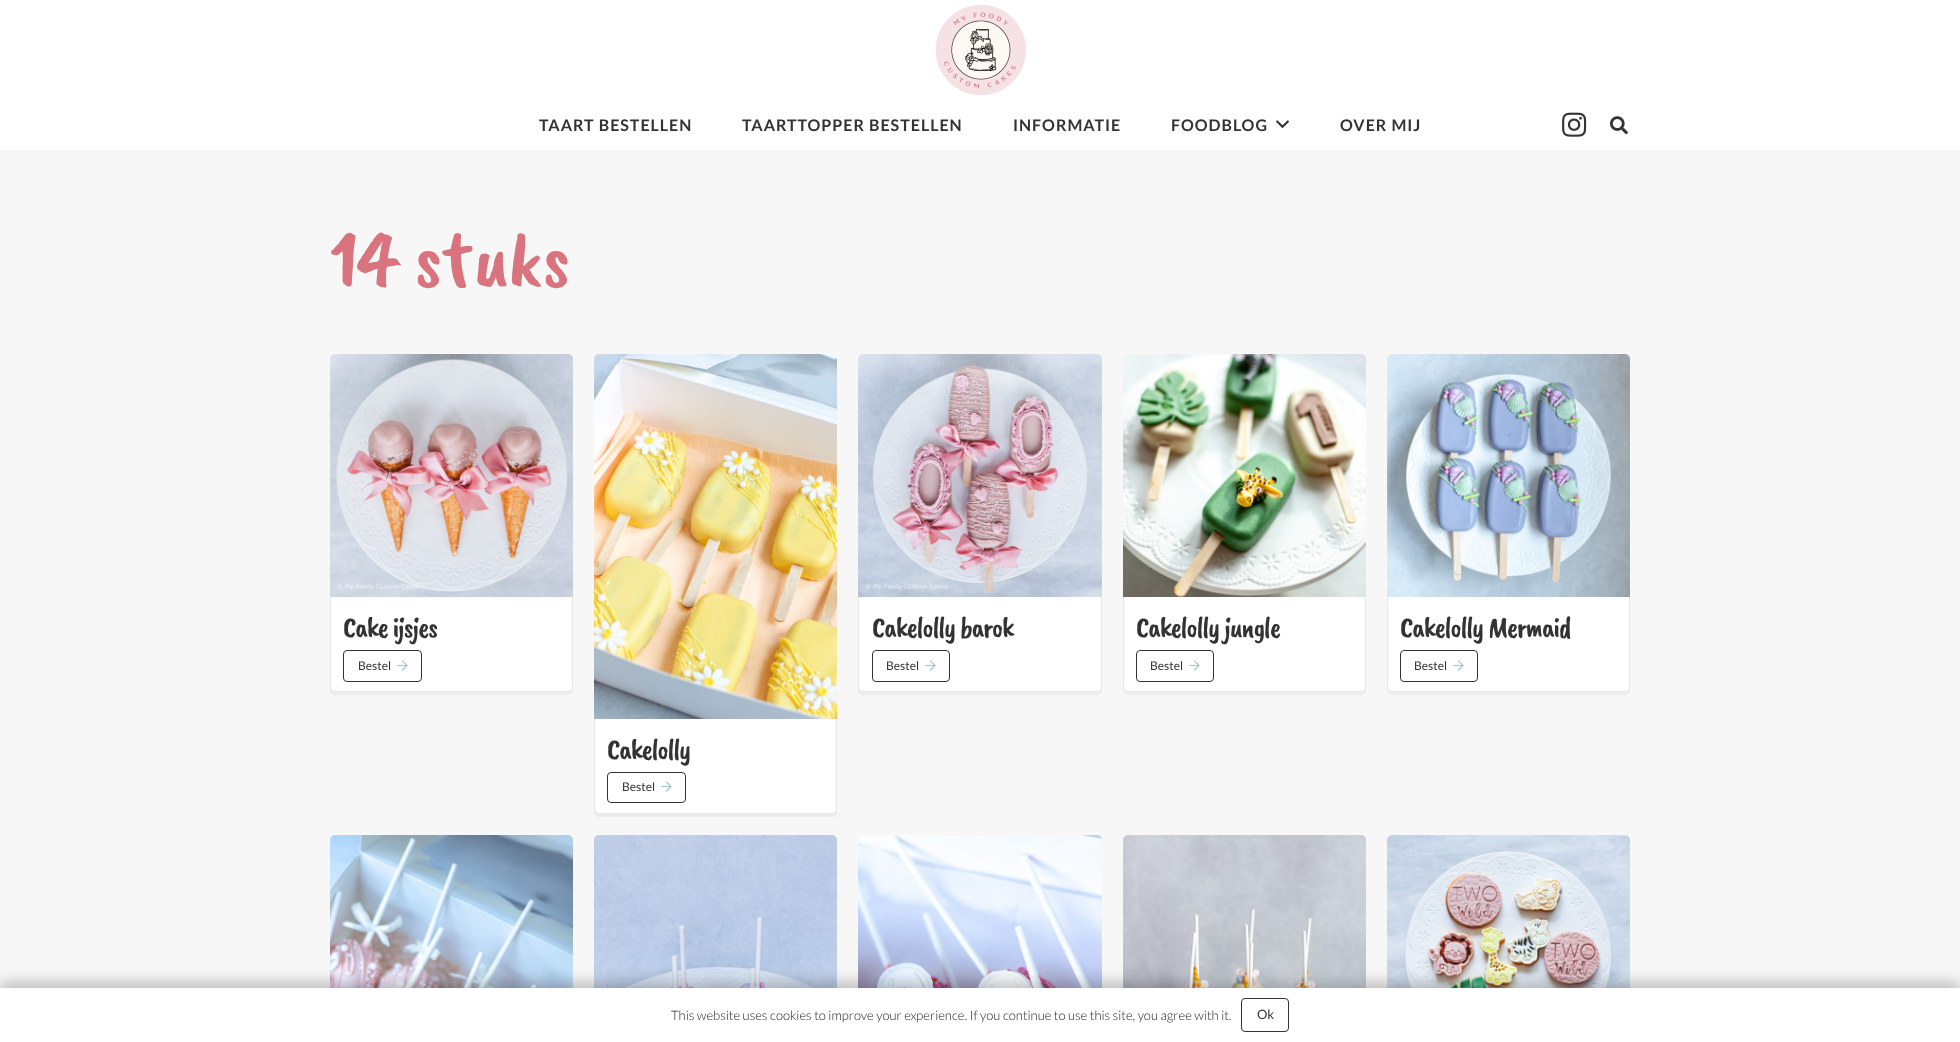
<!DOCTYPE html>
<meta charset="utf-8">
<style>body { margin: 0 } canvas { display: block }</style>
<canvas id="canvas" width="1960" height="1042"></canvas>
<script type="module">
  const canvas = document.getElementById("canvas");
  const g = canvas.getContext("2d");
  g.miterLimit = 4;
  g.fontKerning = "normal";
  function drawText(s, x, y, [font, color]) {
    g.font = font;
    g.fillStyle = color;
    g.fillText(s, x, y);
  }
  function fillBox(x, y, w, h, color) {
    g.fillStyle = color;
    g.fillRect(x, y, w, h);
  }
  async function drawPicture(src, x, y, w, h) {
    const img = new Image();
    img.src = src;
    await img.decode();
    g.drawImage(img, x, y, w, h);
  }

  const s1 = ["bold 16px Lato", "#333333"];
  const s2 = ["82.5px Caveat Brush", "#D9747E"];
  const s3 = ["30px Caveat Brush", "#333333"];
  const s4 = ["12px Lato", "#333333"];
  const s5 = ["300 13px Lato", "#1A1A1A"];
  const s6 = ["13px Lato", "#333333"];

  fillBox(0, 0, 1960, 1042, "#F7F7F7");
  fillBox(0, 0, 1960, 150, "#FFFFFF");
  await drawPicture("pic1.png", 935, 5, 91, 90);
  g.letterSpacing = "1px";
  drawText("TAART BESTELLEN", 539, 131, s1);
  drawText("TAARTTOPPER BESTELLEN", 742, 131, s1);
  drawText("INFORMATIE", 1013, 131, s1);
  drawText("FOODBLOG", 1171, 131, s1);
  await drawPicture("pic2.png", 1276, 120, 13, 8);
  drawText("OVER MIJ", 1340, 131, s1);
  await drawPicture("pic3.png", 1562, 112, 25, 25);
  await drawPicture("pic4.png", 1610, 116, 18, 19);
  g.letterSpacing = "0px";
  drawText("14 stuks", 330, 286, s2);
  await drawPicture("pic5.png", 330, 354, 243, 243);
  g.fillStyle = "#ECECEC";
  g.beginPath();
  g.moveTo(330, 687);
  g.lineTo(330, 690);
  g.bezierCurveTo(330, 693, 332, 695, 335, 695);
  g.lineTo(568, 695);
  g.bezierCurveTo(571, 695, 573, 693, 573, 690);
  g.lineTo(573, 687);
  g.bezierCurveTo(573, 690, 571, 692, 568, 692);
  g.lineTo(335, 692);
  g.bezierCurveTo(332, 692, 330, 690, 330, 687);
  g.closePath();
  g.fill();
  g.fillStyle = "#FFFFFF";
  g.beginPath();
  g.roundRect(330, 597, 243, 95, [0, 0, 5, 5]);
  g.fill();
  g.fillStyle = "#E8E8E8";
  g.beginPath();
  g.moveTo(330, 597);
  g.lineTo(573, 597);
  g.lineTo(573, 687);
  g.bezierCurveTo(573, 690, 571, 692, 568, 692);
  g.lineTo(335, 692);
  g.bezierCurveTo(332, 692, 330, 690, 330, 687);
  g.closePath();
  g.moveTo(331, 597);
  g.lineTo(572, 597);
  g.lineTo(572, 687);
  g.bezierCurveTo(572, 689, 570, 691, 568, 691);
  g.lineTo(335, 691);
  g.bezierCurveTo(333, 691, 331, 689, 331, 687);
  g.closePath();
  g.fill("evenodd");
  g.letterSpacing = "-1.4px";
  drawText("Cake ijsjes", 343, 637, s3);
  await drawPicture("pic6.png", 397, 660, 11, 11);
  g.beginPath();
  g.roundRect(343.5, 650.5, 78, 31, 3.5);
  g.strokeStyle = "#333333";
  g.stroke();
  g.letterSpacing = "0px";
  drawText("Bestel", 358, 670, s4);
  await drawPicture("pic7.png", 858, 354, 244, 243);
  g.fillStyle = "#ECECEC";
  g.beginPath();
  g.moveTo(858, 687);
  g.lineTo(858, 690);
  g.bezierCurveTo(858, 693, 860, 695, 863, 695);
  g.lineTo(1097, 695);
  g.bezierCurveTo(1100, 695, 1102, 693, 1102, 690);
  g.lineTo(1102, 687);
  g.bezierCurveTo(1102, 690, 1100, 692, 1097, 692);
  g.lineTo(863, 692);
  g.bezierCurveTo(860, 692, 858, 690, 858, 687);
  g.closePath();
  g.fill();
  g.fillStyle = "#FFFFFF";
  g.beginPath();
  g.roundRect(858, 597, 244, 95, [0, 0, 5, 5]);
  g.fill();
  g.fillStyle = "#E8E8E8";
  g.beginPath();
  g.moveTo(858, 597);
  g.lineTo(1102, 597);
  g.lineTo(1102, 687);
  g.bezierCurveTo(1102, 690, 1100, 692, 1097, 692);
  g.lineTo(863, 692);
  g.bezierCurveTo(860, 692, 858, 690, 858, 687);
  g.closePath();
  g.moveTo(859, 597);
  g.lineTo(1101, 597);
  g.lineTo(1101, 687);
  g.bezierCurveTo(1101, 689, 1099, 691, 1097, 691);
  g.lineTo(863, 691);
  g.bezierCurveTo(861, 691, 859, 689, 859, 687);
  g.closePath();
  g.fill("evenodd");
  g.letterSpacing = "-1.4px";
  drawText("Cakelolly barok", 872, 637, s3);
  await drawPicture("pic6.png", 925, 660, 11, 11);
  g.beginPath();
  g.roundRect(872.5, 650.5, 77, 31, 3.5);
  g.stroke();
  g.letterSpacing = "0px";
  drawText("Bestel", 886, 670, s4);
  await drawPicture("pic8.png", 1123, 354, 243, 243);
  g.fillStyle = "#ECECEC";
  g.beginPath();
  g.moveTo(1123, 687);
  g.lineTo(1123, 690);
  g.bezierCurveTo(1123, 693, 1125, 695, 1128, 695);
  g.lineTo(1361, 695);
  g.bezierCurveTo(1364, 695, 1366, 693, 1366, 690);
  g.lineTo(1366, 687);
  g.bezierCurveTo(1366, 690, 1364, 692, 1361, 692);
  g.lineTo(1128, 692);
  g.bezierCurveTo(1125, 692, 1123, 690, 1123, 687);
  g.closePath();
  g.fill();
  g.fillStyle = "#FFFFFF";
  g.beginPath();
  g.roundRect(1123, 597, 243, 95, [0, 0, 5, 5]);
  g.fill();
  g.fillStyle = "#E8E8E8";
  g.beginPath();
  g.moveTo(1123, 597);
  g.lineTo(1366, 597);
  g.lineTo(1366, 687);
  g.bezierCurveTo(1366, 690, 1364, 692, 1361, 692);
  g.lineTo(1128, 692);
  g.bezierCurveTo(1125, 692, 1123, 690, 1123, 687);
  g.closePath();
  g.moveTo(1124, 597);
  g.lineTo(1365, 597);
  g.lineTo(1365, 687);
  g.bezierCurveTo(1365, 689, 1363, 691, 1361, 691);
  g.lineTo(1128, 691);
  g.bezierCurveTo(1126, 691, 1124, 689, 1124, 687);
  g.closePath();
  g.fill("evenodd");
  g.letterSpacing = "-1.4px";
  drawText("Cakelolly jungle", 1136, 637, s3);
  await drawPicture("pic6.png", 1189, 660, 11, 11);
  g.beginPath();
  g.roundRect(1136.5, 650.5, 77, 31, 3.5);
  g.stroke();
  g.letterSpacing = "0px";
  drawText("Bestel", 1150, 670, s4);
  await drawPicture("pic9.png", 1387, 354, 243, 243);
  g.fillStyle = "#ECECEC";
  g.beginPath();
  g.moveTo(1387, 687);
  g.lineTo(1387, 690);
  g.bezierCurveTo(1387, 693, 1389, 695, 1392, 695);
  g.lineTo(1625, 695);
  g.bezierCurveTo(1628, 695, 1630, 693, 1630, 690);
  g.lineTo(1630, 687);
  g.bezierCurveTo(1630, 690, 1628, 692, 1625, 692);
  g.lineTo(1392, 692);
  g.bezierCurveTo(1389, 692, 1387, 690, 1387, 687);
  g.closePath();
  g.fill();
  g.fillStyle = "#FFFFFF";
  g.beginPath();
  g.roundRect(1387, 597, 243, 95, [0, 0, 5, 5]);
  g.fill();
  g.fillStyle = "#E8E8E8";
  g.beginPath();
  g.moveTo(1387, 597);
  g.lineTo(1630, 597);
  g.lineTo(1630, 687);
  g.bezierCurveTo(1630, 690, 1628, 692, 1625, 692);
  g.lineTo(1392, 692);
  g.bezierCurveTo(1389, 692, 1387, 690, 1387, 687);
  g.closePath();
  g.moveTo(1388, 597);
  g.lineTo(1629, 597);
  g.lineTo(1629, 687);
  g.bezierCurveTo(1629, 689, 1627, 691, 1625, 691);
  g.lineTo(1392, 691);
  g.bezierCurveTo(1390, 691, 1388, 689, 1388, 687);
  g.closePath();
  g.fill("evenodd");
  g.letterSpacing = "-1.4px";
  drawText("Cakelolly Mermaid", 1400, 637, s3);
  await drawPicture("pic6.png", 1453, 660, 11, 11);
  g.beginPath();
  g.roundRect(1400.5, 650.5, 77, 31, 3.5);
  g.stroke();
  g.letterSpacing = "0px";
  drawText("Bestel", 1414, 670, s4);
  await drawPicture("pic10.png", 594, 354, 243, 365);
  g.fillStyle = "#ECECEC";
  g.beginPath();
  g.moveTo(594, 809);
  g.lineTo(594, 812);
  g.bezierCurveTo(594, 815, 596, 817, 599, 817);
  g.lineTo(832, 817);
  g.bezierCurveTo(835, 817, 837, 815, 837, 812);
  g.lineTo(837, 809);
  g.bezierCurveTo(837, 812, 835, 814, 832, 814);
  g.lineTo(599, 814);
  g.bezierCurveTo(596, 814, 594, 812, 594, 809);
  g.closePath();
  g.fill();
  g.fillStyle = "#FFFFFF";
  g.beginPath();
  g.roundRect(594, 719, 243, 95, [0, 0, 5, 5]);
  g.fill();
  g.fillStyle = "#E8E8E8";
  g.beginPath();
  g.moveTo(594, 719);
  g.lineTo(837, 719);
  g.lineTo(837, 809);
  g.bezierCurveTo(837, 812, 835, 814, 832, 814);
  g.lineTo(599, 814);
  g.bezierCurveTo(596, 814, 594, 812, 594, 809);
  g.closePath();
  g.moveTo(595, 719);
  g.lineTo(836, 719);
  g.lineTo(836, 809);
  g.bezierCurveTo(836, 811, 834, 813, 832, 813);
  g.lineTo(599, 813);
  g.bezierCurveTo(597, 813, 595, 811, 595, 809);
  g.closePath();
  g.fill("evenodd");
  g.letterSpacing = "-1.4px";
  drawText("Cakelolly", 607, 759, s3);
  await drawPicture("pic6.png", 661, 781, 11, 11);
  g.beginPath();
  g.roundRect(607.5, 772.5, 78, 30, 3.5);
  g.stroke();
  g.letterSpacing = "0px";
  drawText("Bestel", 622, 791, s4);
  await drawPicture("pic11.png", 330, 835, 243, 153);
  await drawPicture("pic12.png", 594, 835, 243, 153);
  await drawPicture("pic13.png", 858, 835, 244, 153);
  await drawPicture("pic14.png", 1123, 835, 243, 153);
  await drawPicture("pic15.png", 1387, 835, 243, 153);
  g.fillStyle = "rgba(0, 0, 0, 0.25)";
  g.filter = "blur(7.5px)";
  g.beginPath();
  g.rect(0, 983, 1960, 54);
  g.fill();
  g.filter = "none";
  fillBox(0, 988, 1960, 54, "#FFFFFF");
  drawText("This website uses cookies to improve your experience. If you continue to use this site, you agree with it.", 671, 1020, s5);
  g.beginPath();
  g.roundRect(1241.5, 998.5, 47, 33, 3.5);
  g.stroke();
  drawText("Ok", 1257, 1019, s6);
</script>
